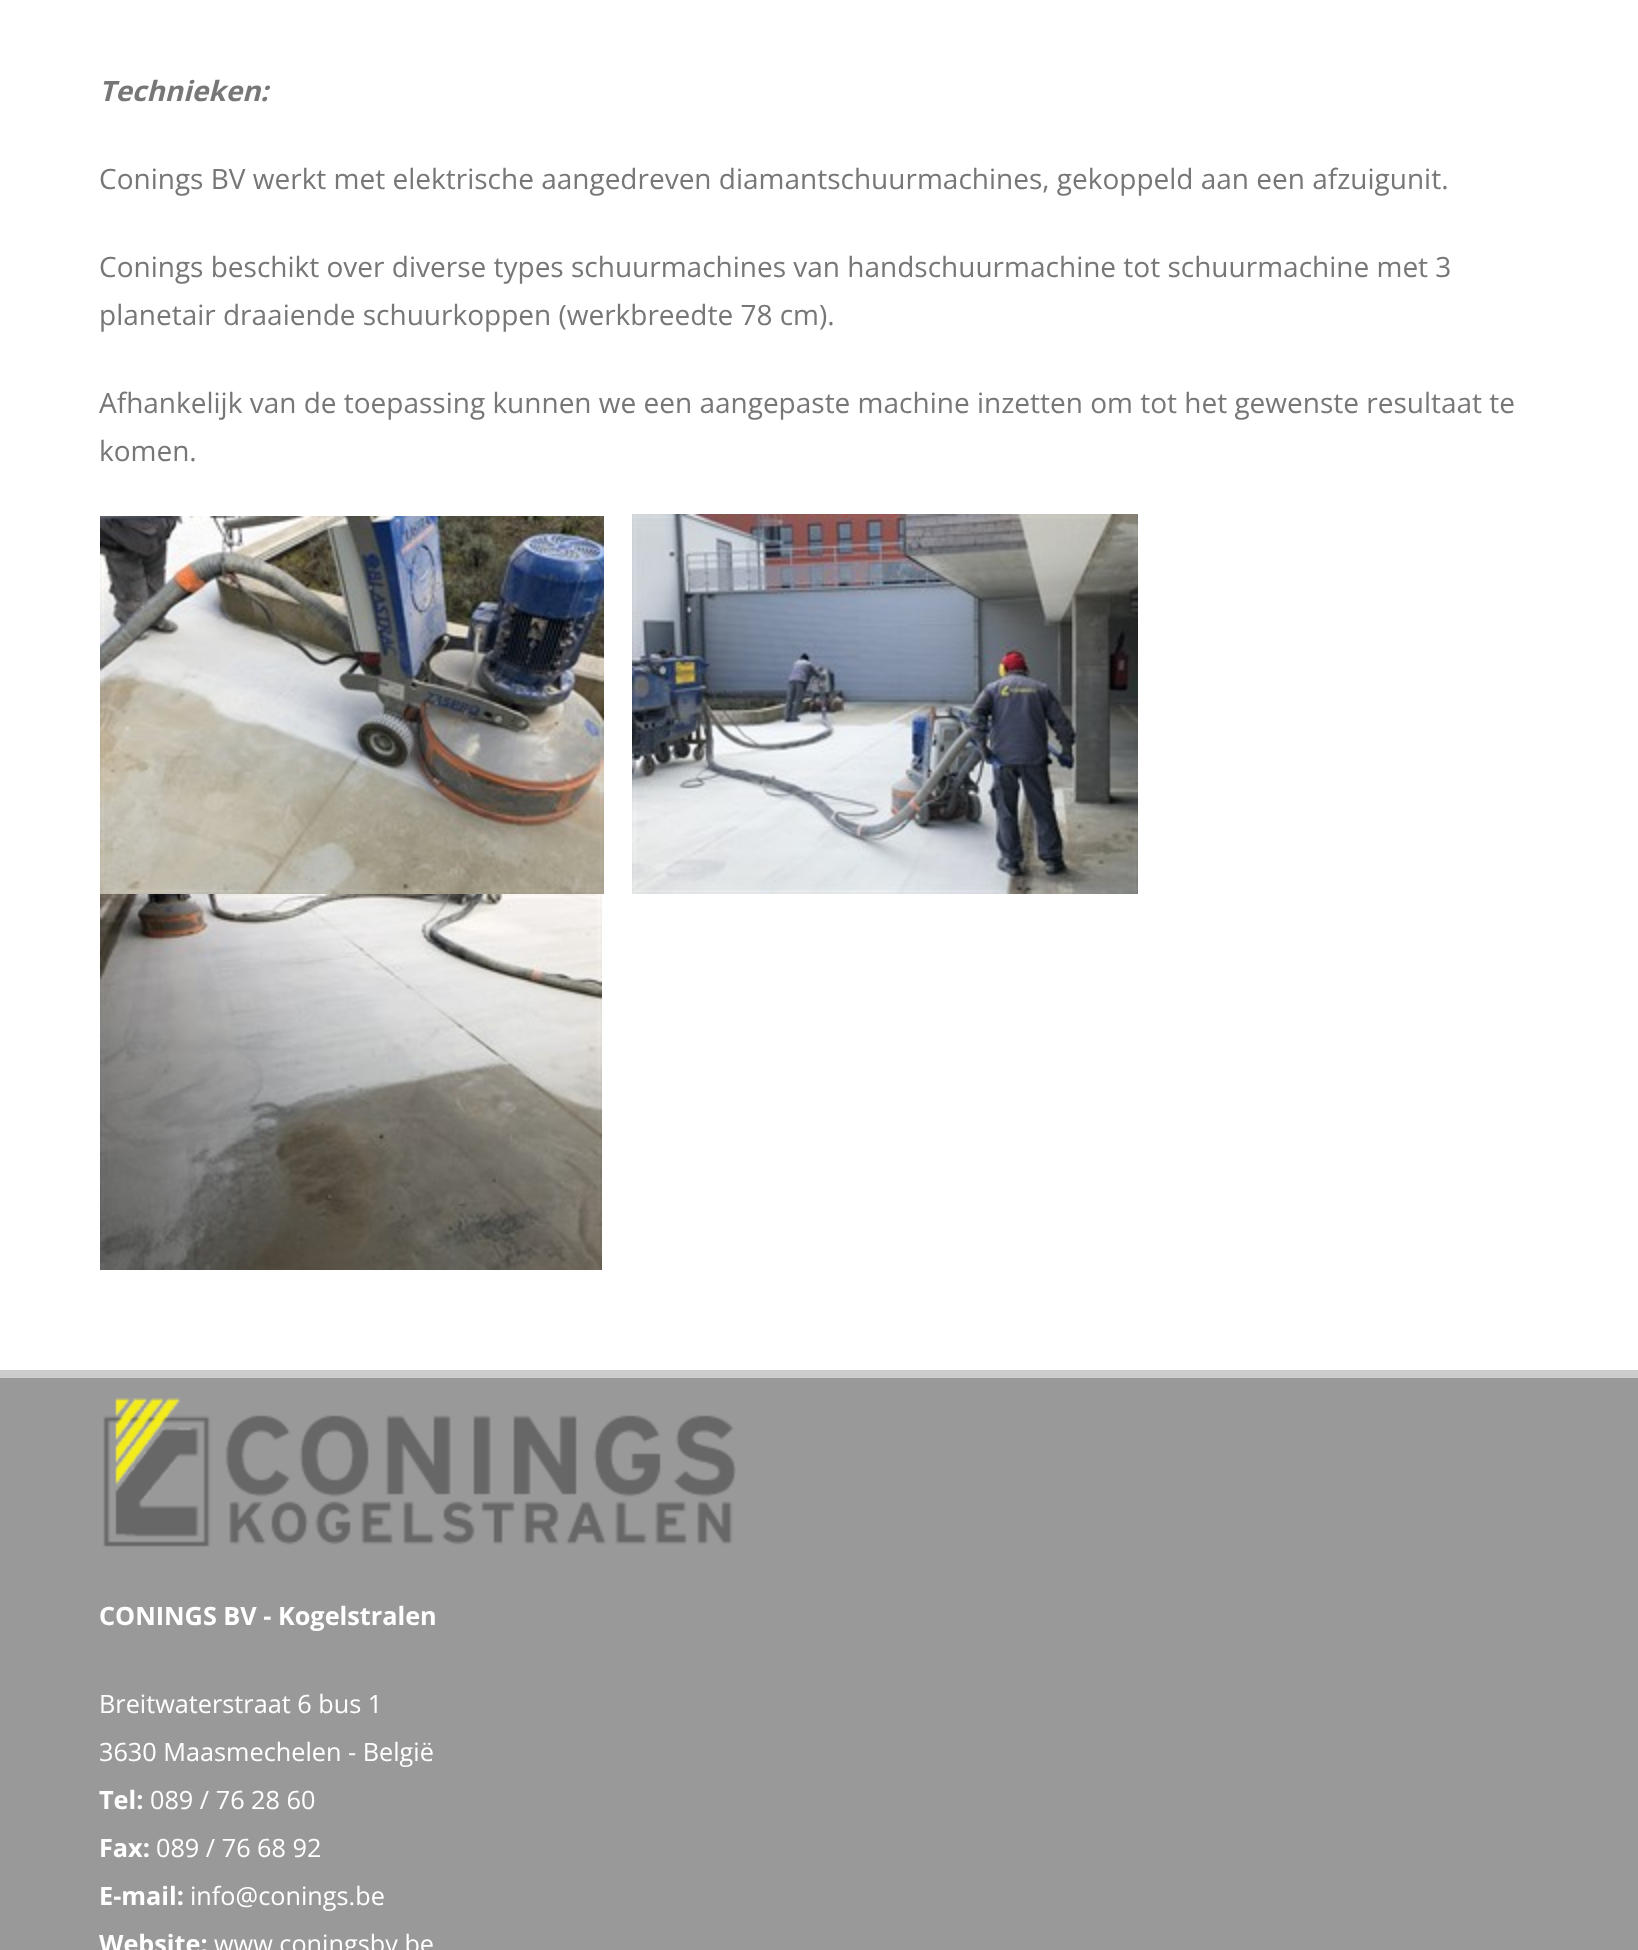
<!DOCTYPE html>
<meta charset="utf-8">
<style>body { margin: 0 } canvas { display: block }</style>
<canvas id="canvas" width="1638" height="1950"></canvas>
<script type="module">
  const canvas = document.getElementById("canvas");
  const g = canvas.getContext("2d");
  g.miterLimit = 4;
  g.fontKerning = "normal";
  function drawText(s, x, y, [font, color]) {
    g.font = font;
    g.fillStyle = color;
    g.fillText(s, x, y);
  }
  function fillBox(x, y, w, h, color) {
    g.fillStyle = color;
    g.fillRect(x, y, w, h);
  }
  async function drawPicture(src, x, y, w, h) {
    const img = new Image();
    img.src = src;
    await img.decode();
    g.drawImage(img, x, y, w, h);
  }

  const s1 = ["italic bold 28px Open Sans", "#777777"];
  const s2 = ["28px Open Sans", "#777777"];
  const s3 = ["bold 25.25px Open Sans", "#FFFFFF"];
  const s4 = ["25.25px Open Sans", "#FFFFFF"];

  fillBox(0, 0, 1638, 1950, "#FFFFFF");
  drawText("Technieken:", 99, 101, s1);
  drawText("Conings BV werkt met elektrische aangedreven diamantschuurmachines, gekoppeld aan een afzuigunit.", 99, 189, s2);
  drawText("Conings beschikt over diverse types schuurmachines van handschuurmachine tot schuurmachine met 3", 99, 277, s2);
  drawText("planetair draaiende schuurkoppen (werkbreedte 78 cm).", 99, 325, s2);
  drawText("Afhankelijk van de toepassing kunnen we een aangepaste machine inzetten om tot het gewenste resultaat te", 99, 413, s2);
  drawText("komen.", 99, 461, s2);
  await drawPicture("pic1.png", 100, 516, 504, 378);
  await drawPicture("pic2.png", 632, 514, 506, 380);
  await drawPicture("pic3.png", 100, 894, 502, 376);
  fillBox(0, 1378, 1638, 572, "#999999");
  fillBox(0, 1370, 1638, 8, "#CCCCCC");
  await drawPicture("pic4.png", 103, 1398, 633, 149);
  drawText("CONINGS BV - Kogelstralen", 99, 1625, s3);
  drawText("Breitwaterstraat 6 bus 1", 99, 1713, s4);
  drawText("3630 Maasmechelen - België", 99, 1761, s4);
  drawText("Tel:", 99, 1809, s3);
  drawText("089 / 76 28 60", 150, 1809, s4);
  drawText("Fax:", 99, 1857, s3);
  drawText("089 / 76 68 92", 156, 1857, s4);
  drawText("E-mail:", 99, 1905, s3);
  drawText("info@conings.be", 190, 1905, s4);
  drawText("Website:", 99, 1953, s3);
  drawText("www.coningsbv.be", 214, 1953, s4);
</script>
